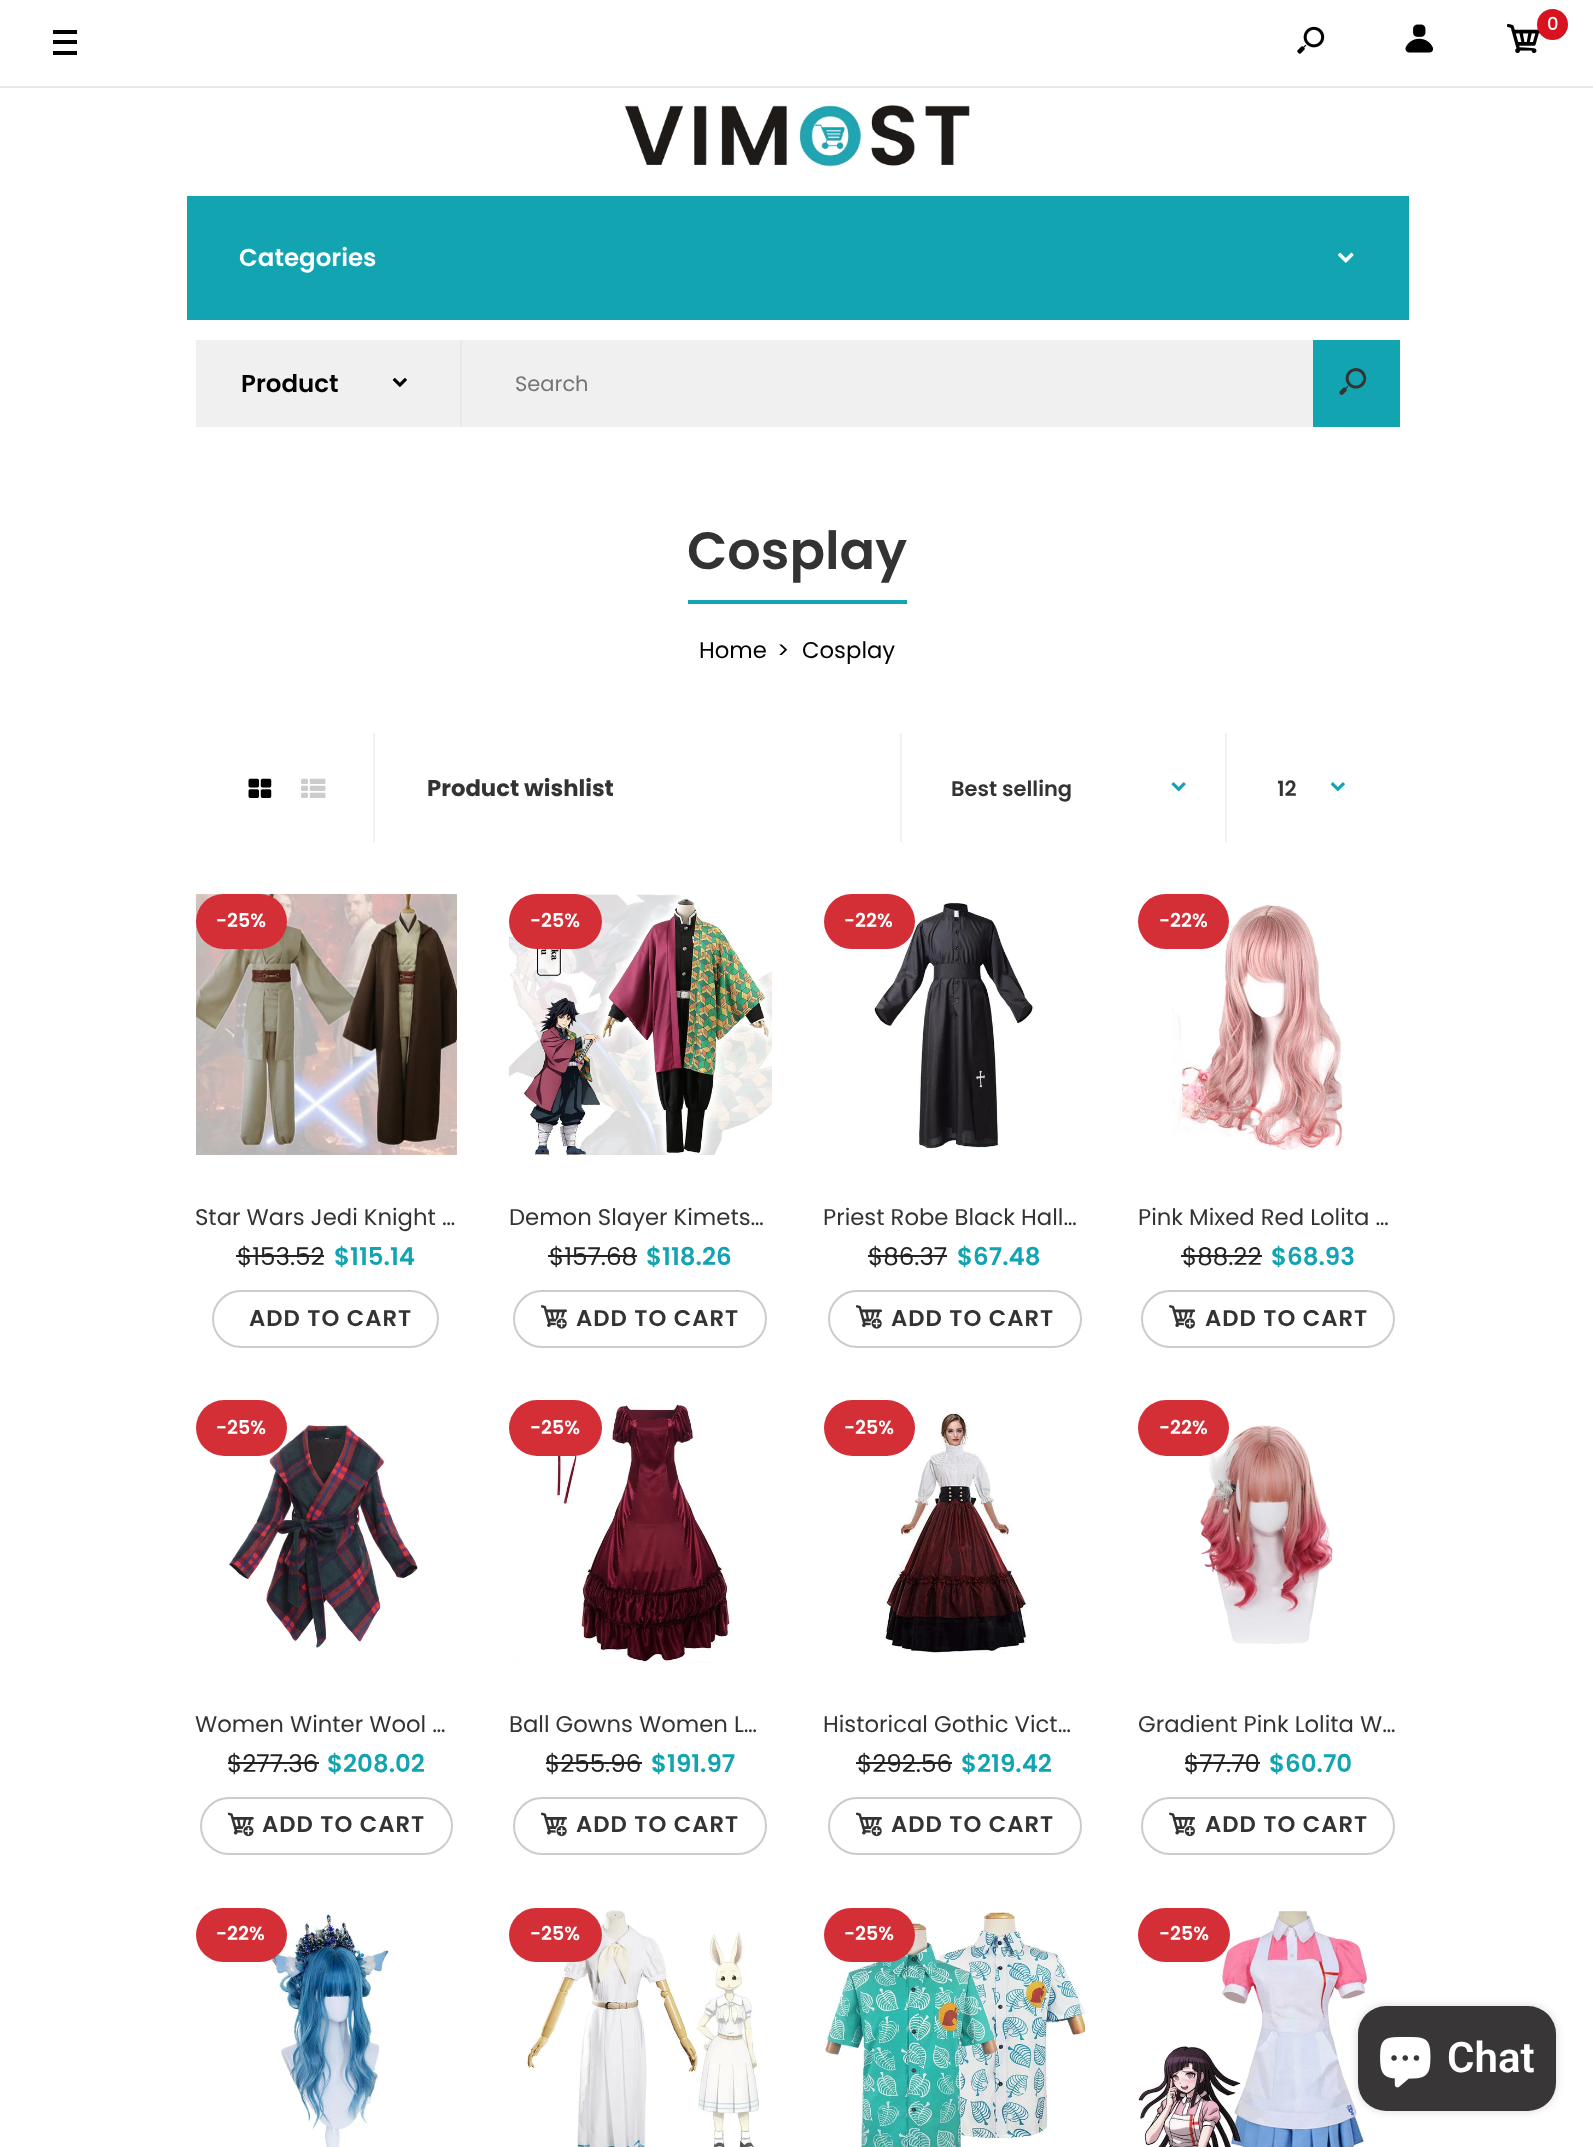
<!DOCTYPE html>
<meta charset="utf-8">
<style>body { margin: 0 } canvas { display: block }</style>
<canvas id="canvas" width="1593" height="2147"></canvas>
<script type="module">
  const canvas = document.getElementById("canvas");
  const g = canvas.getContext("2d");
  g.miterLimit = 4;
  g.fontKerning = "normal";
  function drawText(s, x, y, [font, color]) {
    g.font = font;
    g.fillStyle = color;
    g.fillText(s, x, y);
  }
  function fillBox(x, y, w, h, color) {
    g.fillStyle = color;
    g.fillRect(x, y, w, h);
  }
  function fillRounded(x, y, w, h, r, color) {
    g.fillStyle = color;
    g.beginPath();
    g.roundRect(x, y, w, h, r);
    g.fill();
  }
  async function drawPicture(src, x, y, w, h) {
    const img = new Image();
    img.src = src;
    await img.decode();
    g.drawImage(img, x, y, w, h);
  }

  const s1 = ["500 18px Poppins", "#FFFFFF"];
  const s2 = ["600 24.5px Poppins", "#FFFFFF"];
  const s3 = ["600 24.5px Poppins", "#020202"];
  const s4 = ["21px Poppins", "#757575"];
  const s5 = ["600 52.5px Poppins", "#333333"];
  const s6 = ["22.75px Poppins", "#020202"];
  const s7 = ["bold 22.75px Poppins", "#333333"];
  const s8 = ["600 21px Poppins", "#333333"];
  const s9 = ["600 19px Poppins", "#FFFFFF"];
  const s10 = ["22.75px Poppins", "#333333"];
  const s11 = ["24.5px Poppins", "#232323"];
  const s12 = ["600 24.5px Poppins", "#13A4B1"];
  const s13 = ["600 22.75px Poppins", "#333333"];
  const s14 = ["600 42px Roboto", "#FFFFFF"];

  fillBox(0, 0, 1593, 2147, "#FFFFFF");
  fillBox(0, 86, 1593, 2, "#E7E7E7");
  fillBox(53, 40, 24, 4, "#020202");
  fillBox(53, 30, 24, 4, "#020202");
  fillBox(53, 51, 24, 4, "#020202");
  await drawPicture("pic1.png", 1297, 26, 28, 28);
  await drawPicture("pic2.png", 1405, 24, 29, 29);
  await drawPicture("pic3.png", 1507, 23, 34, 31);
  g.fillStyle = "#D9121F";
  g.beginPath();
  g.arc(1552.5, 24.5, 15.5, 0, Math.PI * 2);
  g.fill();
  drawText("0", 1547, 30, s1);
  await drawPicture("pic4.png", 624, 105, 346, 62);
  fillBox(187, 196, 1222, 124, "#13A4B1");
  drawText("Categories", 239, 266, s2);
  await drawPicture("pic5.png", 1337, 252, 17, 11);
  fillBox(196, 340, 1117, 87, "#F0F0F0");
  fillBox(460, 340, 2, 87, "#E8E8E8");
  drawText("Product", 241, 392, s3);
  await drawPicture("pic6.png", 392, 378, 15, 9);
  drawText("Search", 515, 391, s4);
  fillBox(1313, 340, 87, 87, "#13A4B1");
  await drawPicture("pic7.png", 1339, 368, 28, 27);
  fillBox(688, 600, 219, 4, "#13A4B1");
  drawText("Cosplay", 687, 569, s5);
  drawText("Home", 699, 658, s6);
  drawText(">", 777, 658, s6);
  drawText("Cosplay", 802, 658, s6);
  await drawPicture("pic8.png", 248, 778, 24, 20);
  await drawPicture("pic9.png", 301, 778, 25, 20);
  fillBox(373, 733, 2, 109, "#F1F1F1");
  drawText("Product wishlist", 427, 796, s7);
  fillBox(900, 733, 2, 109, "#F1F1F1");
  drawText("Best selling", 951, 796, s8);
  await drawPicture("pic10.png", 1171, 782, 15, 10);
  fillBox(1225, 733, 2, 109, "#F1F1F1");
  g.save();
  g.beginPath();
  g.rect(1278, 772, 40, 33);
  g.clip();
  drawText("12", 1277, 796, s8);
  g.restore();
  await drawPicture("pic11.png", 1330, 782, 15, 10);
  await drawPicture("pic12.png", 196, 894, 261, 261);
  fillRounded(196, 894, 91, 55, 27.5, "#D42F37");
  drawText("-25%", 216, 927, s9);
  drawText("Star Wars Jedi Knight …", 195, 1225, s10);
  drawText("$153.52", 237, 1265, s11);
  fillBox(236, 1255, 88, 2, "#232323");
  drawText("$115.14", 334, 1265, s12);
  g.beginPath();
  g.roundRect(213, 1291, 225, 56, 28);
  g.strokeStyle = "#CCCCCC";
  g.lineWidth = 2;
  g.stroke();
  g.letterSpacing = "1px";
  drawText("ADD TO CART", 249, 1326, s13);
  await drawPicture("pic13.png", 509, 894, 263, 261);
  fillRounded(509, 894, 93, 55, 27.5, "#D42F37");
  g.letterSpacing = "0px";
  drawText("-25%", 530, 927, s9);
  drawText("Demon Slayer Kimets…", 509, 1225, s10);
  drawText("$157.68", 549, 1265, s11);
  fillBox(548, 1255, 89, 2, "#232323");
  drawText("$118.26", 646, 1265, s12);
  g.beginPath();
  g.roundRect(514, 1291, 252, 56, 28);
  g.stroke();
  await drawPicture("pic14.png", 541, 1305, 26, 24);
  g.letterSpacing = "1px";
  drawText("ADD TO CART", 576, 1326, s13);
  await drawPicture("pic15.png", 874, 903, 160, 246);
  fillRounded(824, 894, 91, 55, 27.5, "#D42F37");
  g.letterSpacing = "0px";
  drawText("-22%", 844, 927, s9);
  drawText("Priest Robe Black Hall…", 823, 1225, s10);
  drawText("$86.37", 868, 1265, s11);
  fillBox(868, 1255, 79, 2, "#232323");
  drawText("$67.48", 957, 1265, s12);
  g.beginPath();
  g.roundRect(829, 1291, 252, 56, 28);
  g.stroke();
  await drawPicture("pic14.png", 856, 1305, 26, 24);
  g.letterSpacing = "1px";
  drawText("ADD TO CART", 891, 1326, s13);
  await drawPicture("pic16.png", 1172, 904, 172, 247);
  fillRounded(1138, 894, 91, 55, 27.5, "#D42F37");
  g.letterSpacing = "0px";
  drawText("-22%", 1159, 927, s9);
  drawText("Pink Mixed Red Lolita …", 1138, 1225, s10);
  drawText("$88.22", 1182, 1265, s11);
  fillBox(1181, 1255, 81, 2, "#232323");
  drawText("$68.93", 1271, 1265, s12);
  g.beginPath();
  g.roundRect(1142, 1291, 252, 56, 28);
  g.stroke();
  await drawPicture("pic17.png", 1169, 1305, 26, 24);
  g.letterSpacing = "1px";
  drawText("ADD TO CART", 1205, 1326, s13);
  await drawPicture("pic18.png", 229, 1424, 190, 225);
  fillRounded(196, 1400, 91, 56, 28, "#D42F37");
  g.letterSpacing = "0px";
  drawText("-25%", 216, 1434, s9);
  drawText("Women Winter Wool …", 195, 1732, s10);
  drawText("$277.36", 227, 1772, s11);
  fillBox(228, 1762, 91, 2, "#232323");
  drawText("$208.02", 327, 1772, s12);
  g.beginPath();
  g.roundRect(201, 1798, 251, 56, 28);
  g.stroke();
  await drawPicture("pic19.png", 228, 1812, 26, 25);
  g.letterSpacing = "1px";
  drawText("ADD TO CART", 262, 1832, s13);
  await drawPicture("pic20.png", 510, 1400, 220, 263);
  fillRounded(509, 1400, 93, 56, 28, "#D42F37");
  g.letterSpacing = "0px";
  drawText("-25%", 530, 1434, s9);
  drawText("Ball Gowns Women L…", 509, 1732, s10);
  drawText("$255.96", 545, 1772, s11);
  fillBox(546, 1762, 96, 2, "#232323");
  drawText("$191.97", 651, 1772, s12);
  g.beginPath();
  g.roundRect(514, 1798, 252, 56, 28);
  g.stroke();
  await drawPicture("pic21.png", 541, 1812, 26, 25);
  g.letterSpacing = "1px";
  drawText("ADD TO CART", 576, 1832, s13);
  await drawPicture("pic22.png", 883, 1412, 145, 242);
  fillRounded(824, 1400, 91, 56, 28, "#D42F37");
  g.letterSpacing = "0px";
  drawText("-25%", 844, 1434, s9);
  drawText("Historical Gothic Vict…", 823, 1732, s10);
  drawText("$292.56", 857, 1772, s11);
  fillBox(856, 1762, 96, 2, "#232323");
  drawText("$219.42", 961, 1772, s12);
  g.beginPath();
  g.roundRect(829, 1798, 252, 56, 28);
  g.stroke();
  await drawPicture("pic21.png", 856, 1812, 26, 25);
  g.letterSpacing = "1px";
  drawText("ADD TO CART", 891, 1832, s13);
  await drawPicture("pic23.png", 1200, 1424, 133, 220);
  fillRounded(1138, 1400, 91, 56, 28, "#D42F37");
  g.letterSpacing = "0px";
  drawText("-22%", 1159, 1434, s9);
  drawText("Gradient Pink Lolita W…", 1138, 1732, s10);
  drawText("$77.70", 1184, 1772, s11);
  fillBox(1185, 1762, 75, 2, "#232323");
  drawText("$60.70", 1269, 1772, s12);
  g.beginPath();
  g.roundRect(1142, 1798, 252, 56, 28);
  g.stroke();
  await drawPicture("pic24.png", 1169, 1812, 26, 25);
  g.letterSpacing = "1px";
  drawText("ADD TO CART", 1205, 1832, s13);
  await drawPicture("pic25.png", 267, 1913, 122, 234);
  fillRounded(196, 1908, 91, 54, 27, "#D42F37");
  g.letterSpacing = "0px";
  drawText("-22%", 216, 1940, s9);
  await drawPicture("pic26.png", 526, 1910, 233, 237);
  fillRounded(509, 1908, 93, 54, 27, "#D42F37");
  drawText("-25%", 530, 1940, s9);
  await drawPicture("pic27.png", 824, 1911, 261, 236);
  fillRounded(824, 1908, 91, 54, 27, "#D42F37");
  drawText("-25%", 844, 1940, s9);
  await drawPicture("pic28.png", 1138, 1910, 229, 237);
  fillRounded(1138, 1908, 92, 54, 27, "#D42F37");
  drawText("-25%", 1159, 1940, s9);
  g.fillStyle = "rgba(0, 0, 0, 0.15)";
  g.filter = "blur(4.5px)";
  g.beginPath();
  g.roundRect(1358, 2006, 198, 105, 28);
  g.fill();
  g.filter = "none";
  fillRounded(1358, 2006, 198, 105, 28, "#383636");
  await drawPicture("pic29.png", 1380, 2037, 51, 51);
  drawText("Chat", 1447, 2072, s14);
</script>
